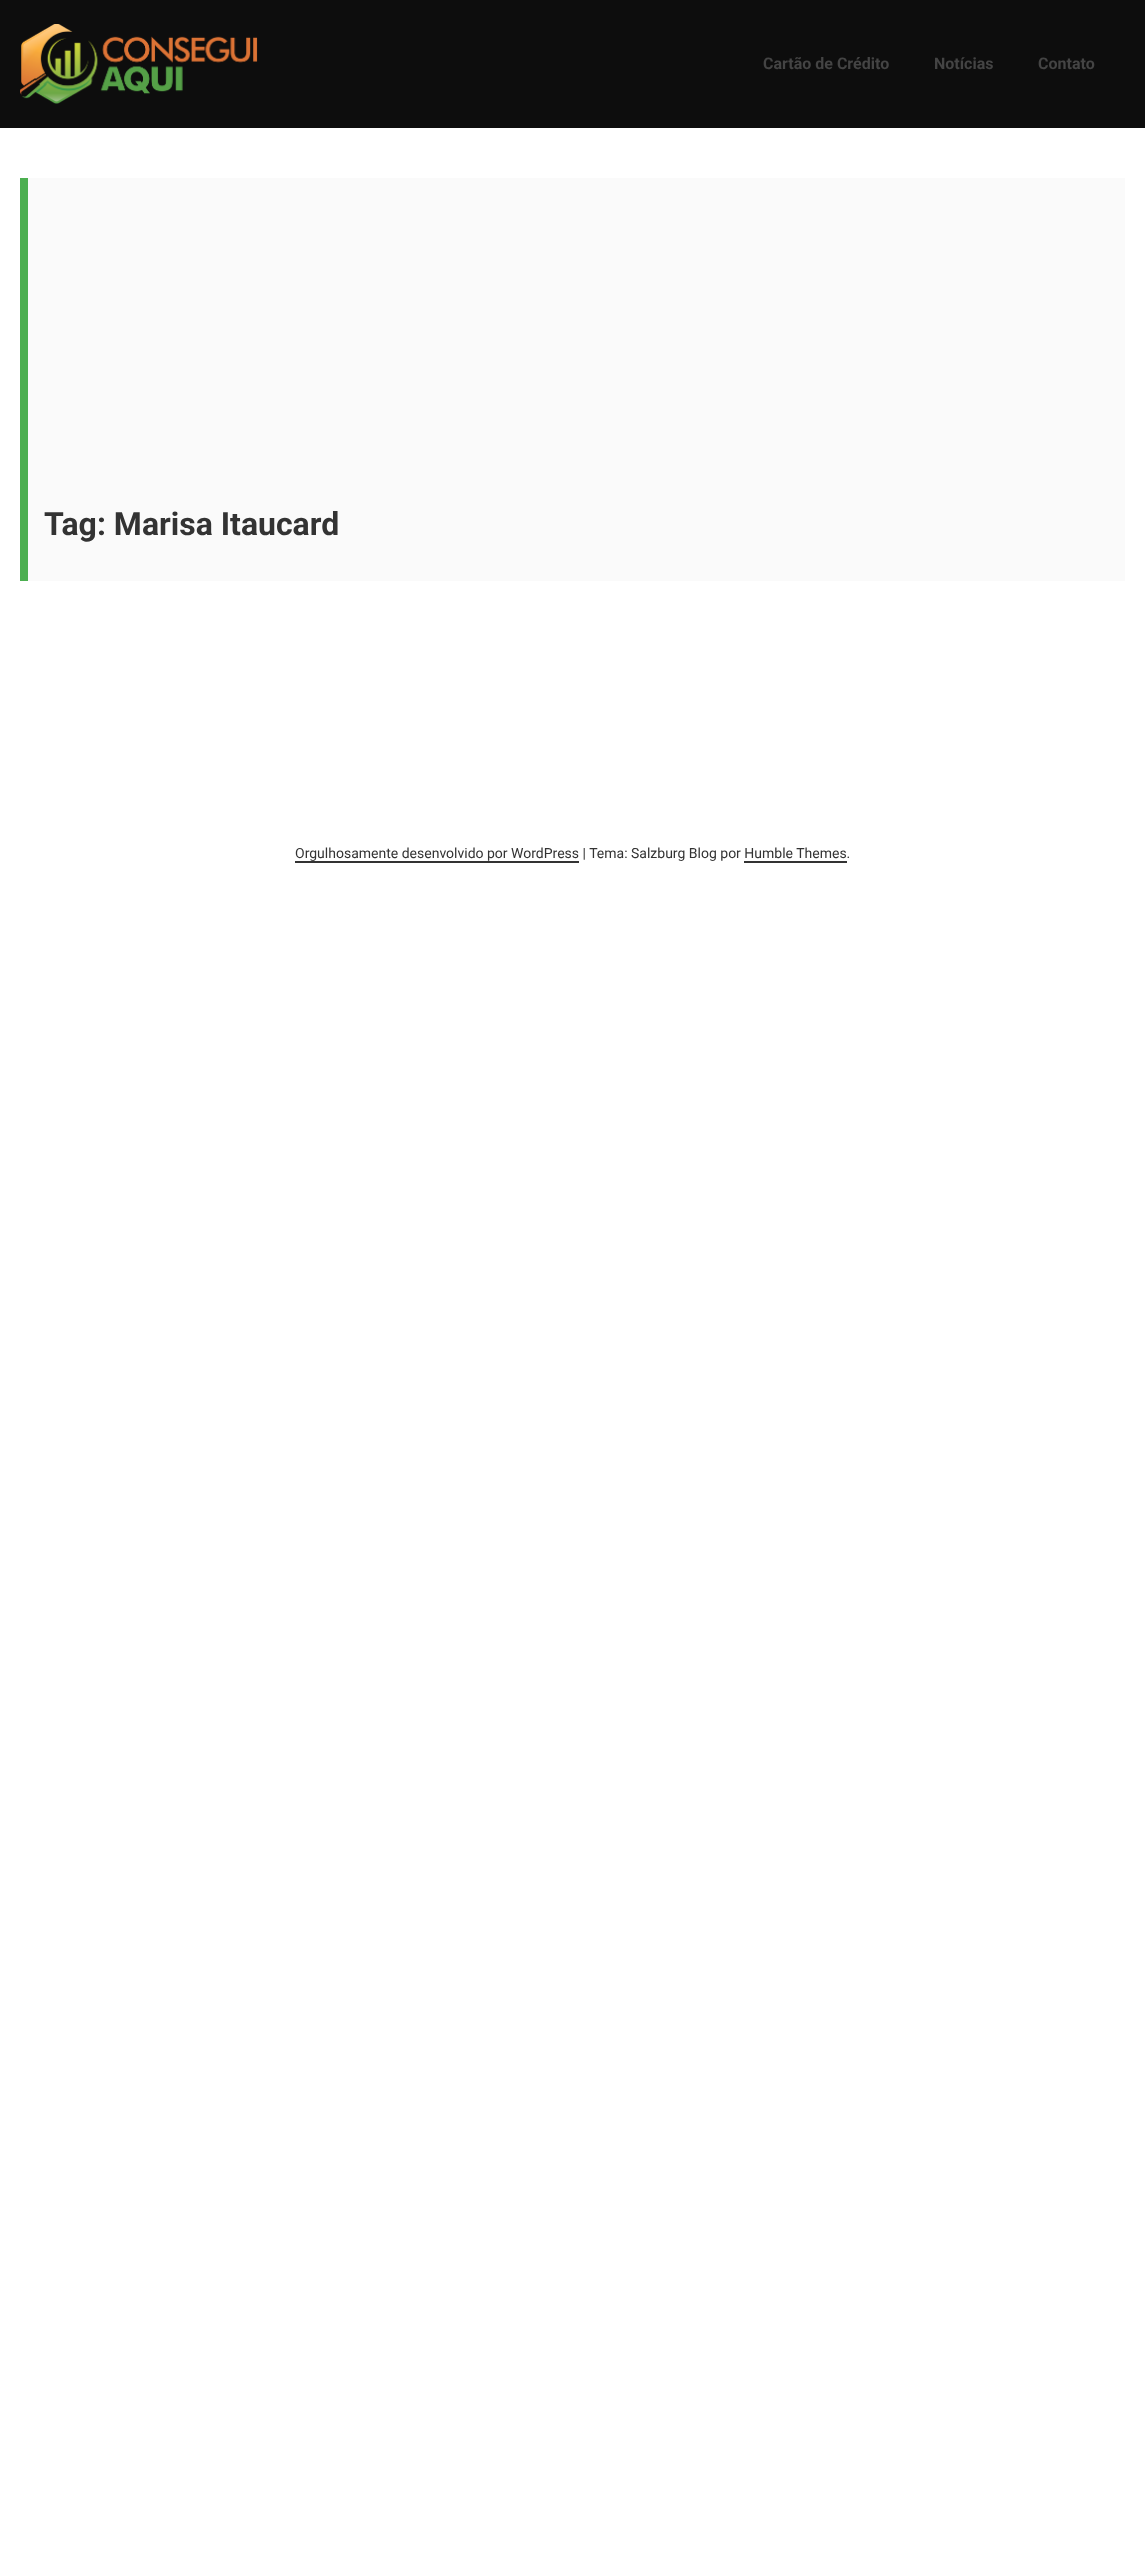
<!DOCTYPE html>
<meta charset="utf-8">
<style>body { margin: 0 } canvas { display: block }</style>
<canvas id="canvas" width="1145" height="2562"></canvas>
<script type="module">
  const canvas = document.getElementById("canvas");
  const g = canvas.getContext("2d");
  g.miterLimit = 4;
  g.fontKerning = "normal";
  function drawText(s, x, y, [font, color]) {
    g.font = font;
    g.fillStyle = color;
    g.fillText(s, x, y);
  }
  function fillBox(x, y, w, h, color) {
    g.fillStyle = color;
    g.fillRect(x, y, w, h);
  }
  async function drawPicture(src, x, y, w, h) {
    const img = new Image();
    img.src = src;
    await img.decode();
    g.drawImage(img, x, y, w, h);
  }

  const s1 = ["bold 16px Roboto", "#444444"];
  const s2 = ["bold 32px Roboto", "#333333"];
  const s3 = ["14px Roboto", "#333333"];

  fillBox(0, 0, 1145, 2562, "#FFFFFF");
  fillBox(0, 0, 1145, 128, "#0D0D0D");
  await drawPicture("pic1.png", 20, 24, 238, 80);
  drawText("Cartão de Crédito", 763, 69, s1);
  drawText("Notícias", 934, 69, s1);
  drawText("Contato", 1038, 69, s1);
  fillBox(28, 178, 1097, 403, "#FAFAFA");
  fillBox(20, 178, 8, 403, "#4CAF50");
  drawText("Tag: Marisa Itaucard", 44, 535, s2);
  drawText("Orgulhosamente desenvolvido por WordPress | Tema: Salzburg Blog por Humble Themes.", 295, 858, s3);
  fillBox(295, 861, 284, 2, "#333333");
  fillBox(744, 861, 103, 2, "#333333");
</script>
